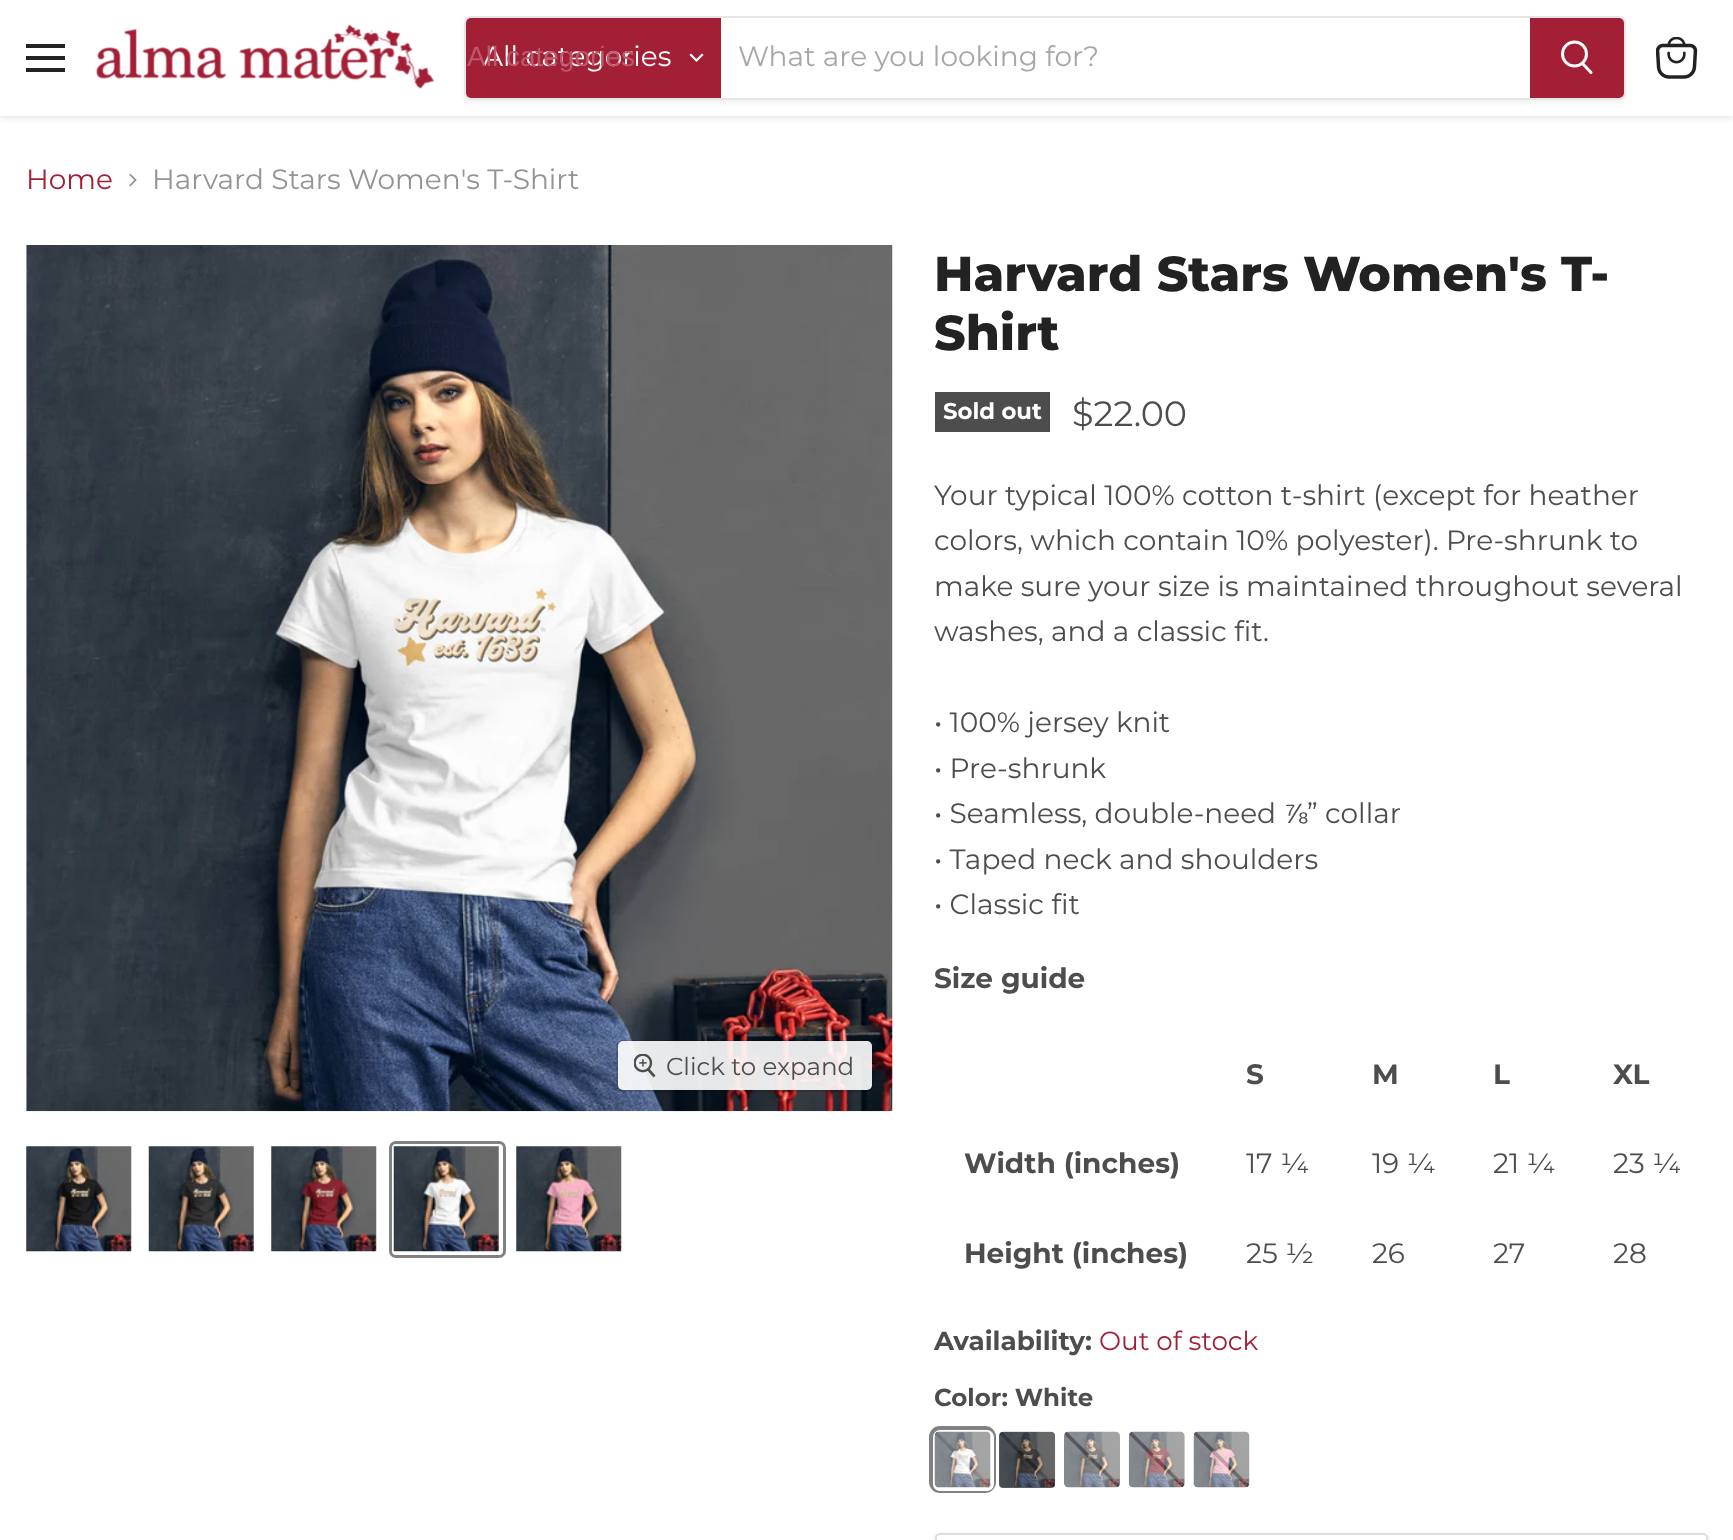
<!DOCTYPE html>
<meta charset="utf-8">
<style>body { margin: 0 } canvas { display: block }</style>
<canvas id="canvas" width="1733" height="1540"></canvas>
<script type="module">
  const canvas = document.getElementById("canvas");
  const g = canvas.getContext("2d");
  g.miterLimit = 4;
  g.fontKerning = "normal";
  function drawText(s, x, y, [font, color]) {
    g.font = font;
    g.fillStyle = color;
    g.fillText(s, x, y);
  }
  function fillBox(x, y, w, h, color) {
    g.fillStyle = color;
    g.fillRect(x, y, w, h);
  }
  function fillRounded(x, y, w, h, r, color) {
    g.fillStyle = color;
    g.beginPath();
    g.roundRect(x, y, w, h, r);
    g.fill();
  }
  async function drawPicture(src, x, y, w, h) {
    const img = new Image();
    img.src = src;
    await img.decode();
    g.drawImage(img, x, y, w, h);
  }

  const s1 = ["28px Montserrat", "#FFFFFF"];
  const s2 = ["28px Liberation Sans", "#BB586A"];
  const s3 = ["28px Montserrat", "#A7A7A7"];
  const s4 = ["28px Montserrat", "#A31F36"];
  const s5 = ["28px Montserrat", "#949494"];
  const s6 = ["24.5px Montserrat", "#4D4D4D"];
  const s7 = ["800 49px Montserrat", "#222222"];
  const s8 = ["bold 22.75px Montserrat", "#FFFFFF"];
  const s9 = ["35px Montserrat", "#4D4D4D"];
  const s10 = ["28px Montserrat", "#4D4D4D"];
  const s11 = ["28px Liberation Sans", "#4D4D4D"];
  const s12 = ["bold 28px Montserrat", "#4D4D4D"];
  const s13 = ["bold 26.25px Montserrat", "#4D4D4D"];
  const s14 = ["26.25px Montserrat", "#A31F36"];
  const s15 = ["bold 24.5px Montserrat", "#4D4D4D"];

  fillBox(0, 0, 1733, 1540, "#FFFFFF");
  g.fillStyle = "rgba(128, 128, 128, 0.25)";
  g.filter = "blur(3.5px)";
  g.beginPath();
  g.rect(0, 2, 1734, 115);
  g.fill();
  g.filter = "none";
  fillBox(0, 0, 1733, 116, "#FFFFFF");
  fillBox(26, 44, 39, 4, "#222222");
  fillBox(26, 56, 39, 4, "#222222");
  fillBox(26, 68, 39, 4, "#222222");
  await drawPicture("pic1.png", 96, 24, 339, 65);
  g.save();
  g.beginPath();
  g.moveTo(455, 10);
  g.lineTo(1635, 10);
  g.lineTo(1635, 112);
  g.lineTo(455, 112);
  g.closePath();
  g.moveTo(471, 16);
  g.lineTo(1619, 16);
  g.bezierCurveTo(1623, 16, 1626, 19, 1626, 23);
  g.lineTo(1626, 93);
  g.bezierCurveTo(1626, 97, 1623, 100, 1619, 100);
  g.lineTo(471, 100);
  g.bezierCurveTo(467, 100, 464, 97, 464, 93);
  g.lineTo(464, 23);
  g.bezierCurveTo(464, 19, 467, 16, 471, 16);
  g.closePath();
  g.clip("evenodd");
  g.fillStyle = "rgba(128, 128, 128, 0.11)";
  g.filter = "blur(2.5px)";
  g.beginPath();
  g.roundRect(464, 19, 1162, 84, 7);
  g.fill();
  g.filter = "none";
  g.restore();
  g.beginPath();
  g.roundRect(465, 17, 1160, 82, 6);
  g.strokeStyle = "rgba(128, 128, 128, 0.2)";
  g.lineWidth = 2;
  g.stroke();
  g.fillStyle = "#A31F36";
  g.beginPath();
  g.roundRect(466, 18, 255, 80, [5, 0, 0, 5]);
  g.fill();
  drawText("All categories", 483, 66, s1);
  drawText("All categories", 467, 66, s2);
  g.beginPath();
  g.moveTo(696.5, 60.5);
  g.lineTo(702, 55);
  g.moveTo(696.5, 60.5);
  g.lineTo(691, 55);
  g.strokeStyle = "#FFFFFF";
  g.lineWidth = 2.2;
  g.lineCap = "square";
  g.stroke();
  drawText("What are you looking for?", 738, 66, s3);
  g.fillStyle = "#A31F36";
  g.beginPath();
  g.roundRect(1531, 19, 92, 78, [0, 4, 4, 0]);
  g.fill();
  g.strokeStyle = "#A31F36";
  g.lineWidth = 2;
  g.stroke();
  g.beginPath();
  g.moveTo(1591, 72.5);
  g.lineTo(1583, 64);
  g.strokeStyle = "#FFFFFF";
  g.lineWidth = 3;
  g.lineCap = "round";
  g.stroke();
  g.beginPath();
  g.arc(1574.5, 54, 12, 0, Math.PI * 2);
  g.stroke();
  await drawPicture("pic2.png", 1656, 37, 42, 42);
  drawText("Home", 26, 189, s4);
  await drawPicture("pic3.png", 129, 173, 8, 14);
  drawText("Harvard Stars Women's T-Shirt", 152, 189, s5);
  await drawPicture("pic4.png", 26, 245, 867, 867);
  g.beginPath();
  g.roundRect(617, 1041, 255, 50, 6);
  g.strokeStyle = "rgba(0, 0, 0, 0.15)";
  g.lineWidth = 2;
  g.stroke();
  fillRounded(618, 1041, 254, 49, 5, "rgba(255, 255, 255, 0.9)");
  await drawPicture("pic5.png", 634, 1054, 22, 24);
  drawText("Click to expand", 666, 1075, s6);
  await drawPicture("pic6.png", 26, 1146, 106, 106);
  await drawPicture("pic7.png", 148, 1146, 106, 106);
  await drawPicture("pic8.png", 271, 1146, 106, 106);
  g.beginPath();
  g.roundRect(390.5, 1142.5, 114, 114, 5.5);
  g.strokeStyle = "#818181";
  g.lineWidth = 3;
  g.stroke();
  await drawPicture("pic9.png", 393, 1146, 106, 106);
  await drawPicture("pic10.png", 516, 1146, 106, 106);
  drawText("Harvard Stars Women's T-", 934, 291, s7);
  drawText("Shirt", 934, 350, s7);
  fillBox(935, 392, 115, 40, "#4D4D4D");
  drawText("Sold out", 943, 419, s8);
  drawText("$22.00", 1072, 426, s9);
  drawText("Your typical 100% cotton t-shirt (except for heather", 934, 505, s10);
  drawText("colors, which contain 10% polyester). Pre-shrunk to", 934, 550, s10);
  drawText("make sure your size is maintained throughout several", 934, 596, s10);
  drawText("washes, and a classic fit.", 934, 641, s10);
  drawText("• 100% jersey knit", 934, 732, s10);
  drawText("• Pre-shrunk", 934, 778, s10);
  drawText("• Seamless, double-need", 934, 823, s10);
  drawText("⅞", 1284, 823, s11);
  drawText("” collar", 1307, 823, s10);
  drawText("• Taped neck and shoulders", 934, 869, s10);
  drawText("• Classic fit", 934, 914, s10);
  drawText("Size guide", 934, 988, s12);
  drawText("S", 1246, 1084, s12);
  drawText("M", 1372, 1084, s12);
  drawText("L", 1493, 1084, s12);
  drawText("XL", 1613, 1084, s12);
  drawText("Width (inches)", 964, 1173, s12);
  drawText("17 ¼", 1246, 1173, s10);
  drawText("19 ¼", 1372, 1173, s10);
  drawText("21 ¼", 1493, 1173, s10);
  drawText("23 ¼", 1613, 1173, s10);
  drawText("Height (inches)", 964, 1263, s12);
  drawText("25 ½", 1246, 1263, s10);
  drawText("26", 1372, 1263, s10);
  drawText("27", 1493, 1263, s10);
  drawText("28", 1613, 1263, s10);
  drawText("Availability:", 934, 1350, s13);
  drawText("Out of stock", 1099, 1350, s14);
  drawText("Color: White", 934, 1406, s15);
  g.beginPath();
  g.roundRect(931.5, 1428.5, 62, 62, 8.5);
  g.lineWidth = 5;
  g.stroke();
  g.beginPath();
  g.roundRect(934.5, 1431.5, 58, 58, 5.5);
  g.strokeStyle = "#FFFFFF";
  g.lineWidth = 3;
  g.stroke();
  await drawPicture("pic12.png", 935, 1432, 55, 55);
  fillRounded(935, 1432, 56, 56, 4, "rgba(255, 255, 255, 0.6)");
  await drawPicture("pic11.png", 934, 1431, 57, 57);
  await drawPicture("pic14.png", 999, 1432, 56, 55);
  fillRounded(999, 1432, 56, 56, 4, "rgba(0, 0, 0, 0.6)");
  await drawPicture("pic13.png", 999, 1431, 57, 57);
  await drawPicture("pic16.png", 1064, 1432, 56, 55);
  await drawPicture("pic15.png", 1064, 1431, 56, 57);
  await drawPicture("pic18.png", 1129, 1432, 56, 55);
  await drawPicture("pic17.png", 1128, 1431, 57, 57);
  await drawPicture("pic20.png", 1194, 1432, 55, 55);
  await drawPicture("pic19.png", 1193, 1431, 57, 57);
  g.fillStyle = "rgba(0, 0, 0, 0.15)";
  g.filter = "blur(2px)";
  g.beginPath();
  g.roundRect(935, 1535, 773, 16, 5);
  g.fill();
  g.filter = "none";
  g.fillStyle = "#FFFFFF";
  g.beginPath();
  g.roundRect(936, 1534, 771, 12, 4);
  g.fill();
  g.strokeStyle = "#DDDDDD";
  g.lineWidth = 2;
  g.stroke();
</script>
